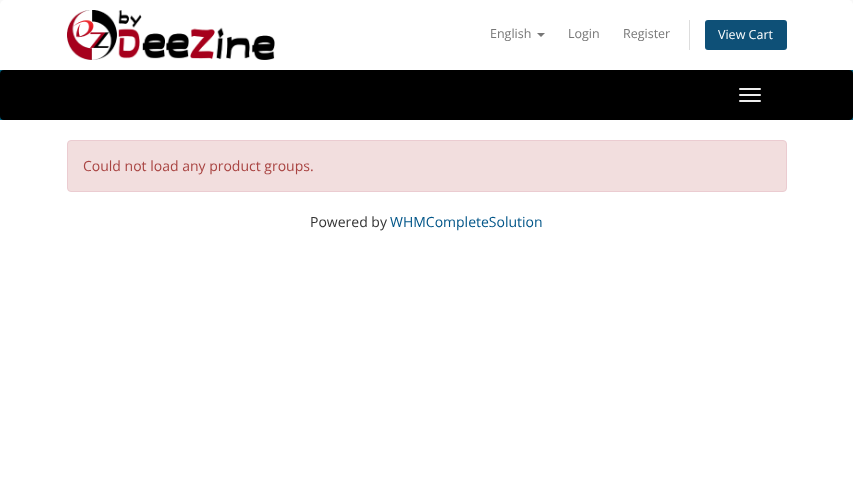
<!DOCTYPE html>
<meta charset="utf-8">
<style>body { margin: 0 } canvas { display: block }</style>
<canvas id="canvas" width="853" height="480"></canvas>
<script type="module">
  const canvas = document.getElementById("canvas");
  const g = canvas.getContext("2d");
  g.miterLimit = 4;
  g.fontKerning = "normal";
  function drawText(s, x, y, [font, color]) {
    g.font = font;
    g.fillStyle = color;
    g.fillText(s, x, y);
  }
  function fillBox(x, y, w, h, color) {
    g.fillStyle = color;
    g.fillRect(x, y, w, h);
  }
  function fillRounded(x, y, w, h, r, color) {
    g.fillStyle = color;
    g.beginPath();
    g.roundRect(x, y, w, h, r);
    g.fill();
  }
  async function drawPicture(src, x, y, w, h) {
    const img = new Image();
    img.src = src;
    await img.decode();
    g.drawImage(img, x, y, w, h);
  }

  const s1 = ["12.5px Open Sans", "#777777"];
  const s2 = ["12.5px Open Sans", "#FFFFFF"];
  const s3 = ["14px Open Sans", "#A94442"];
  const s4 = ["14px Open Sans", "#333333"];
  const s5 = ["14px Open Sans", "#005588"];

  fillBox(0, 0, 853, 480, "#F8F8F8");
  g.fillStyle = "#FFFFFF";
  g.beginPath();
  g.roundRect(0, 0, 853, 70, [5, 5, 0, 0]);
  g.fill();
  await drawPicture("pic1.png", 67, 10, 208, 50);
  drawText("English", 490, 38, s1);
  g.beginPath();
  g.moveTo(537, 33);
  g.lineTo(545, 33);
  g.lineTo(541, 37);
  g.closePath();
  g.fill();
  drawText("Login", 568, 38, s1);
  drawText("Register", 623, 38, s1);
  fillBox(689, 20, 1, 30, "#DDDDDD");
  fillRounded(705, 20, 82, 30, 3, "#0E5077");
  drawText("View Cart", 718, 39, s2);
  fillBox(0, 70, 853, 50, "#006687");
  fillRounded(0, 70, 853, 50, 4, "#000000");
  fillRounded(739, 88, 22, 2, 1, "#EEEEEE");
  fillRounded(739, 94, 22, 2, 1, "#EEEEEE");
  fillRounded(739, 100, 22, 2, 1, "#EEEEEE");
  fillBox(0, 120, 853, 360, "#FFFFFF");
  g.fillStyle = "#F2DEDE";
  g.beginPath();
  g.roundRect(67.5, 140.5, 719, 51, 3.5);
  g.fill();
  g.strokeStyle = "#EBCCD1";
  g.stroke();
  drawText("Could not load any product groups.", 83, 171, s3);
  drawText("Powered by", 310, 227, s4);
  drawText("WHMCompleteSolution", 390, 227, s5);
</script>
